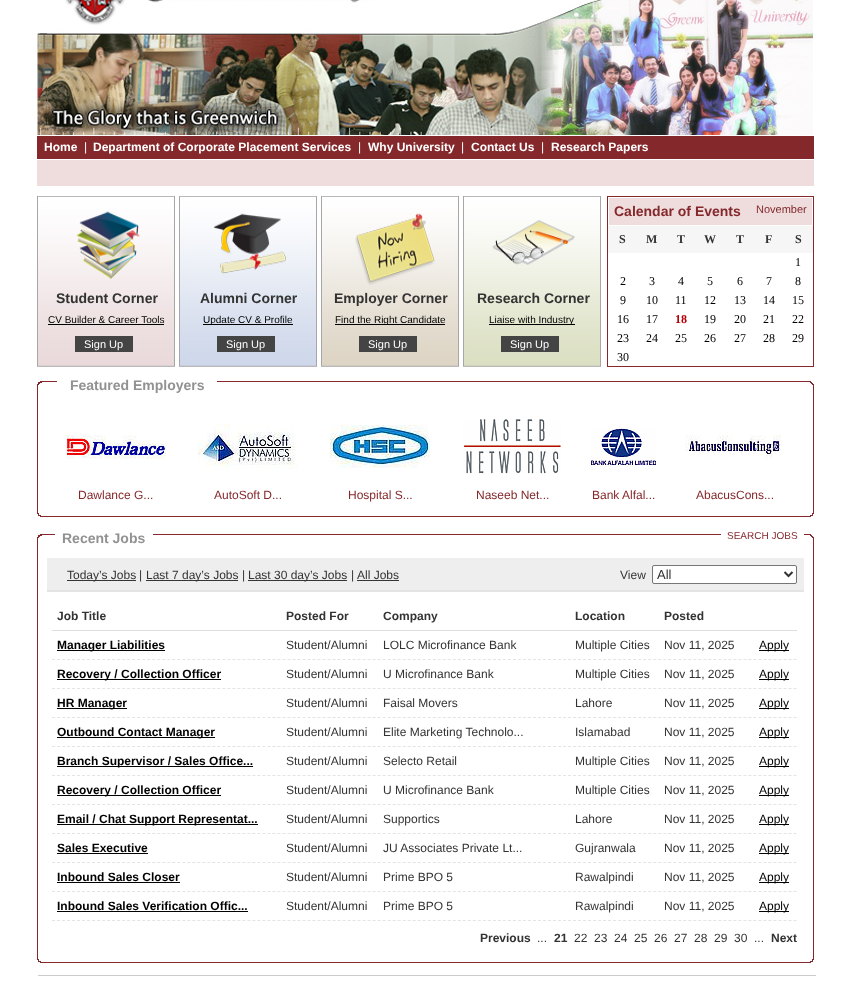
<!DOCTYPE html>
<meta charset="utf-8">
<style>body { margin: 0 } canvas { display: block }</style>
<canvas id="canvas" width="851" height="984"></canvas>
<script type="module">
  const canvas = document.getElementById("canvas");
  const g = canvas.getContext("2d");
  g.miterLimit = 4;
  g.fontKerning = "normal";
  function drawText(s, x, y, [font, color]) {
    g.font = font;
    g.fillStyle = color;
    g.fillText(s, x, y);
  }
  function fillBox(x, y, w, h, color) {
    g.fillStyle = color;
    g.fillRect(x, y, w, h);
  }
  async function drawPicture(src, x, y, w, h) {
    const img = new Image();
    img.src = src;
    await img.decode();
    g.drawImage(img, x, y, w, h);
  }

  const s1 = ["bold 12px Liberation Sans", "#FFFFFF"];
  const s2 = ["12px Liberation Sans", "#FFFFFF"];
  const s3 = ["bold 14px Liberation Sans", "#333333"];
  const s4 = ["10px Liberation Sans", "#000000"];
  const s5 = ["11px Liberation Sans", "#FFFFFF"];
  const s6 = ["bold 14px Liberation Sans", "#84282B"];
  const s7 = ["11px Liberation Sans", "#84282B"];
  const s8 = ["bold 12px Liberation Serif", "#333333"];
  const s9 = ["12px Liberation Serif", "#000000"];
  const s10 = ["bold 12px Liberation Serif", "#B60008"];
  const s11 = ["bold 14px Liberation Sans", "#929292"];
  const s12 = ["12px Liberation Sans", "#84282B"];
  const s13 = ["10px Liberation Sans", "#84282B"];
  const s14 = ["12px Liberation Sans", "#333333"];
  const s15 = ["13px Liberation Sans", "#333333"];
  const s16 = ["bold 12px Liberation Sans", "#333333"];
  const s17 = ["bold 12px Liberation Sans", "#000000"];
  const s18 = ["12px Liberation Sans", "#000000"];

  fillBox(0, 0, 851, 984, "#FFFFFF");
  await drawPicture("pic1.png", 37, 0, 776, 135);
  fillBox(37, 136, 777, 23, "#84282B");
  drawText("Home", 44, 151, s1);
  drawText("|", 84, 151, s2);
  drawText("Department of Corporate Placement Services", 93, 151, s1);
  drawText("|", 358, 151, s2);
  drawText("Why University", 368, 151, s1);
  drawText("|", 461, 151, s2);
  drawText("Contact Us", 471, 151, s1);
  drawText("|", 541, 151, s2);
  drawText("Research Papers", 551, 151, s1);
  fillBox(37, 160, 777, 26, "#EFDDDE");
  await drawPicture("pic2.png", 37, 196, 138, 171);
  await drawPicture("pic3.png", 76, 211, 64, 68);
  drawText("Student Corner", 56, 303, s3);
  drawText("CV Builder & Career Tools", 48, 323, s4);
  fillBox(48, 324, 116, 1, "#000000");
  fillBox(75, 336, 58, 16, "#444444");
  drawText("Sign Up", 84, 348, s5);
  await drawPicture("pic4.png", 179, 196, 138, 171);
  await drawPicture("pic5.png", 214, 213, 72, 61);
  drawText("Alumni Corner", 200, 303, s3);
  fillBox(203, 324, 90, 1, "#000000");
  drawText("Update CV & Profile", 203, 323, s4);
  fillBox(217, 336, 58, 16, "#444444");
  drawText("Sign Up", 226, 348, s5);
  await drawPicture("pic6.png", 321, 196, 138, 171);
  await drawPicture("pic7.png", 355, 213, 80, 72);
  drawText("Employer Corner", 334, 303, s3);
  fillBox(335, 324, 110, 1, "#000000");
  drawText("Find the Right Candidate", 335, 323, s4);
  fillBox(359, 336, 58, 16, "#444444");
  drawText("Sign Up", 368, 348, s5);
  await drawPicture("pic8.png", 463, 196, 138, 171);
  await drawPicture("pic9.png", 492, 220, 83, 45);
  drawText("Research Corner", 477, 303, s3);
  fillBox(489, 324, 86, 1, "#000000");
  drawText("Liaise with Industry", 489, 323, s4);
  fillBox(501, 336, 58, 16, "#444444");
  drawText("Sign Up", 510, 348, s5);
  g.strokeStyle = "#84282B";
  g.strokeRect(607.5, 196.5, 206, 170);
  fillBox(609, 198, 203, 27, "#EFDDDE");
  drawText("Calendar of Events", 614, 216, s6);
  drawText("November", 756, 213, s7);
  fillBox(608, 226, 205, 27, "#F6F6F6");
  drawText("S", 619, 243, s8);
  drawText("M", 646, 243, s8);
  drawText("T", 677, 243, s8);
  drawText("W", 704, 243, s8);
  drawText("T", 736, 243, s8);
  drawText("F", 765, 243, s8);
  drawText("S", 795, 243, s8);
  drawText("1", 795, 266, s9);
  drawText("2", 620, 285, s9);
  drawText("3", 649, 285, s9);
  drawText("4", 678, 285, s9);
  drawText("5", 707, 285, s9);
  drawText("6", 737, 285, s9);
  drawText("7", 766, 285, s9);
  drawText("8", 795, 285, s9);
  drawText("9", 620, 304, s9);
  drawText("10", 646, 304, s9);
  drawText("11", 675, 304, s9);
  drawText("12", 704, 304, s9);
  drawText("13", 734, 304, s9);
  drawText("14", 763, 304, s9);
  drawText("15", 792, 304, s9);
  drawText("16", 617, 323, s9);
  drawText("17", 646, 323, s9);
  drawText("18", 675, 323, s10);
  drawText("19", 704, 323, s9);
  drawText("20", 734, 323, s9);
  drawText("21", 763, 323, s9);
  drawText("22", 792, 323, s9);
  drawText("23", 617, 342, s9);
  drawText("24", 646, 342, s9);
  drawText("25", 675, 342, s9);
  drawText("26", 704, 342, s9);
  drawText("27", 734, 342, s9);
  drawText("28", 763, 342, s9);
  drawText("29", 792, 342, s9);
  drawText("30", 617, 361, s9);
  await drawPicture("pic10.png", 37, 381, 10, 14);
  fillBox(47, 381, 757, 1, "#84282B");
  fillBox(57, 381, 160, 1, "#FFFFFF");
  drawText("Featured Employers", 70, 390, s11);
  await drawPicture("pic11.png", 804, 381, 10, 14);
  fillBox(37, 395, 1, 112, "#84282B");
  await drawPicture("pic12.png", 66, 435, 100, 24);
  await drawPicture("pic13.png", 198, 424, 100, 46);
  await drawPicture("pic14.png", 330, 425, 100, 43);
  await drawPicture("pic15.png", 463, 419, 98, 55);
  await drawPicture("pic16.png", 591, 428, 65, 38);
  await drawPicture("pic17.png", 685, 435, 96, 24);
  drawText("Dawlance G...", 78, 499, s12);
  drawText("AutoSoft D...", 214, 499, s12);
  drawText("Hospital S...", 348, 499, s12);
  drawText("Naseeb Net...", 476, 499, s12);
  drawText("Bank Alfal...", 592, 499, s12);
  drawText("AbacusCons...", 696, 499, s12);
  fillBox(813, 395, 1, 112, "#84282B");
  await drawPicture("pic18.png", 37, 507, 10, 10);
  fillBox(47, 516, 757, 1, "#84282B");
  await drawPicture("pic19.png", 804, 507, 10, 10);
  await drawPicture("pic10.png", 37, 534, 10, 14);
  fillBox(47, 534, 674, 1, "#84282B");
  fillBox(55, 534, 98, 1, "#FFFFFF");
  drawText("Recent Jobs", 62, 543, s11);
  drawText("SEARCH JOBS", 727, 539, s13);
  await drawPicture("pic11.png", 804, 534, 10, 14);
  fillBox(37, 548, 1, 405, "#84282B");
  fillBox(813, 548, 1, 405, "#84282B");
  fillBox(47, 558, 757, 32, "#EEEEEE");
  fillBox(47, 590, 757, 2, "#E4E4E4");
  fillBox(67, 580, 69, 1, "#363636");
  drawText("Today’s Jobs", 67, 579, s14);
  drawText("|", 139, 579, s14);
  fillBox(146, 580, 92, 1, "#363636");
  drawText("Last 7 day’s Jobs", 146, 579, s14);
  drawText("|", 242, 579, s14);
  fillBox(248, 580, 99, 1, "#363636");
  drawText("Last 30 day’s Jobs", 248, 579, s14);
  drawText("|", 351, 579, s14);
  drawText("All Jobs", 357, 579, s14);
  fillBox(357, 580, 42, 1, "#363636");
  drawText("View", 620, 579, s14);
  g.fillStyle = "#FFFFFF";
  g.beginPath();
  g.roundRect(652.5, 565.5, 144, 18, 1.5);
  g.fill();
  g.strokeStyle = "#767676";
  g.stroke();
  g.beginPath();
  g.moveTo(784.5, 572);
  g.lineTo(788.5, 576);
  g.lineTo(792.5, 572);
  g.strokeStyle = "#333333";
  g.lineWidth = 2;
  g.stroke();
  drawText("All", 657, 579, s15);
  fillBox(52, 630, 745, 1, "#DDDDDD");
  drawText("Job Title", 57, 620, s16);
  drawText("Posted For", 286, 620, s16);
  drawText("Company", 383, 620, s16);
  drawText("Location", 575, 620, s16);
  drawText("Posted", 664, 620, s16);
  g.beginPath();
  g.moveTo(52, 659.5);
  g.lineTo(797, 659.5);
  g.strokeStyle = "#E4E4E4";
  g.lineWidth = 1;
  g.setLineDash([3, 2.01]);
  g.stroke();
  fillBox(57, 650, 108, 1, "#000000");
  drawText("Manager Liabilities", 57, 649, s17);
  drawText("Student/Alumni", 286, 649, s14);
  drawText("LOLC Microfinance Bank", 383, 649, s14);
  drawText("Multiple Cities", 575, 649, s14);
  drawText("Nov 11, 2025", 664, 649, s14);
  fillBox(759, 650, 30, 1, "#000000");
  drawText("Apply", 759, 649, s18);
  g.beginPath();
  g.moveTo(52, 688.5);
  g.lineTo(797, 688.5);
  g.stroke();
  fillBox(57, 679, 164, 1, "#000000");
  drawText("Recovery / Collection Officer", 57, 678, s17);
  drawText("Student/Alumni", 286, 678, s14);
  drawText("U Microfinance Bank", 383, 678, s14);
  drawText("Multiple Cities", 575, 678, s14);
  drawText("Nov 11, 2025", 664, 678, s14);
  fillBox(759, 679, 30, 1, "#000000");
  drawText("Apply", 759, 678, s18);
  g.beginPath();
  g.moveTo(52, 717.5);
  g.lineTo(797, 717.5);
  g.stroke();
  fillBox(57, 708, 70, 1, "#000000");
  drawText("HR Manager", 57, 707, s17);
  drawText("Student/Alumni", 286, 707, s14);
  drawText("Faisal Movers", 383, 707, s14);
  drawText("Lahore", 575, 707, s14);
  drawText("Nov 11, 2025", 664, 707, s14);
  fillBox(759, 708, 30, 1, "#000000");
  drawText("Apply", 759, 707, s18);
  g.beginPath();
  g.moveTo(52, 746.5);
  g.lineTo(797, 746.5);
  g.stroke();
  fillBox(57, 737, 158, 1, "#000000");
  drawText("Outbound Contact Manager", 57, 736, s17);
  drawText("Student/Alumni", 286, 736, s14);
  drawText("Elite Marketing Technolo...", 383, 736, s14);
  drawText("Islamabad", 575, 736, s14);
  drawText("Nov 11, 2025", 664, 736, s14);
  fillBox(759, 737, 30, 1, "#000000");
  drawText("Apply", 759, 736, s18);
  g.beginPath();
  g.moveTo(52, 775.5);
  g.lineTo(797, 775.5);
  g.stroke();
  fillBox(57, 766, 196, 1, "#000000");
  drawText("Branch Supervisor / Sales Office...", 57, 765, s17);
  drawText("Student/Alumni", 286, 765, s14);
  drawText("Selecto Retail", 383, 765, s14);
  drawText("Multiple Cities", 575, 765, s14);
  drawText("Nov 11, 2025", 664, 765, s14);
  fillBox(759, 766, 30, 1, "#000000");
  drawText("Apply", 759, 765, s18);
  g.beginPath();
  g.moveTo(52, 804.5);
  g.lineTo(797, 804.5);
  g.stroke();
  fillBox(57, 795, 164, 1, "#000000");
  drawText("Recovery / Collection Officer", 57, 794, s17);
  drawText("Student/Alumni", 286, 794, s14);
  drawText("U Microfinance Bank", 383, 794, s14);
  drawText("Multiple Cities", 575, 794, s14);
  drawText("Nov 11, 2025", 664, 794, s14);
  fillBox(759, 795, 30, 1, "#000000");
  drawText("Apply", 759, 794, s18);
  g.beginPath();
  g.moveTo(52, 833.5);
  g.lineTo(797, 833.5);
  g.stroke();
  fillBox(57, 824, 201, 1, "#000000");
  drawText("Email / Chat Support Representat...", 57, 823, s17);
  drawText("Student/Alumni", 286, 823, s14);
  drawText("Supportics", 383, 823, s14);
  drawText("Lahore", 575, 823, s14);
  drawText("Nov 11, 2025", 664, 823, s14);
  fillBox(759, 824, 30, 1, "#000000");
  drawText("Apply", 759, 823, s18);
  g.beginPath();
  g.moveTo(52, 862.5);
  g.lineTo(797, 862.5);
  g.stroke();
  drawText("Sales Executive", 57, 852, s17);
  fillBox(57, 853, 91, 1, "#000000");
  drawText("Student/Alumni", 286, 852, s14);
  drawText("JU Associates Private Lt...", 383, 852, s14);
  drawText("Gujranwala", 575, 852, s14);
  drawText("Nov 11, 2025", 664, 852, s14);
  fillBox(759, 853, 30, 1, "#000000");
  drawText("Apply", 759, 852, s18);
  g.beginPath();
  g.moveTo(52, 891.5);
  g.lineTo(797, 891.5);
  g.stroke();
  drawText("Inbound Sales Closer", 57, 881, s17);
  fillBox(57, 882, 123, 1, "#000000");
  drawText("Student/Alumni", 286, 881, s14);
  drawText("Prime BPO 5", 383, 881, s14);
  drawText("Rawalpindi", 575, 881, s14);
  drawText("Nov 11, 2025", 664, 881, s14);
  fillBox(759, 882, 30, 1, "#000000");
  drawText("Apply", 759, 881, s18);
  g.beginPath();
  g.moveTo(52, 920.5);
  g.lineTo(797, 920.5);
  g.stroke();
  drawText("Inbound Sales Verification Offic...", 57, 910, s17);
  fillBox(57, 911, 191, 1, "#000000");
  drawText("Student/Alumni", 286, 910, s14);
  drawText("Prime BPO 5", 383, 910, s14);
  drawText("Rawalpindi", 575, 910, s14);
  drawText("Nov 11, 2025", 664, 910, s14);
  fillBox(759, 911, 30, 1, "#000000");
  drawText("Apply", 759, 910, s18);
  drawText("Previous", 480, 942, s16);
  drawText("...", 537, 942, s14);
  drawText("21", 554, 942, s16);
  drawText("22", 574, 942, s14);
  drawText("23", 594, 942, s14);
  drawText("24", 614, 942, s14);
  drawText("25", 634, 942, s14);
  drawText("26", 654, 942, s14);
  drawText("27", 674, 942, s14);
  drawText("28", 694, 942, s14);
  drawText("29", 714, 942, s14);
  drawText("30", 734, 942, s14);
  drawText("...", 754, 942, s14);
  drawText("Next", 771, 942, s16);
  await drawPicture("pic18.png", 37, 953, 10, 10);
  fillBox(47, 962, 757, 1, "#84282B");
  await drawPicture("pic19.png", 804, 953, 10, 10);
  fillBox(37, 975, 779, 1, "#CCCCCC");
  fillBox(37, 973, 1, 3, "#FFFFFF");
</script>
